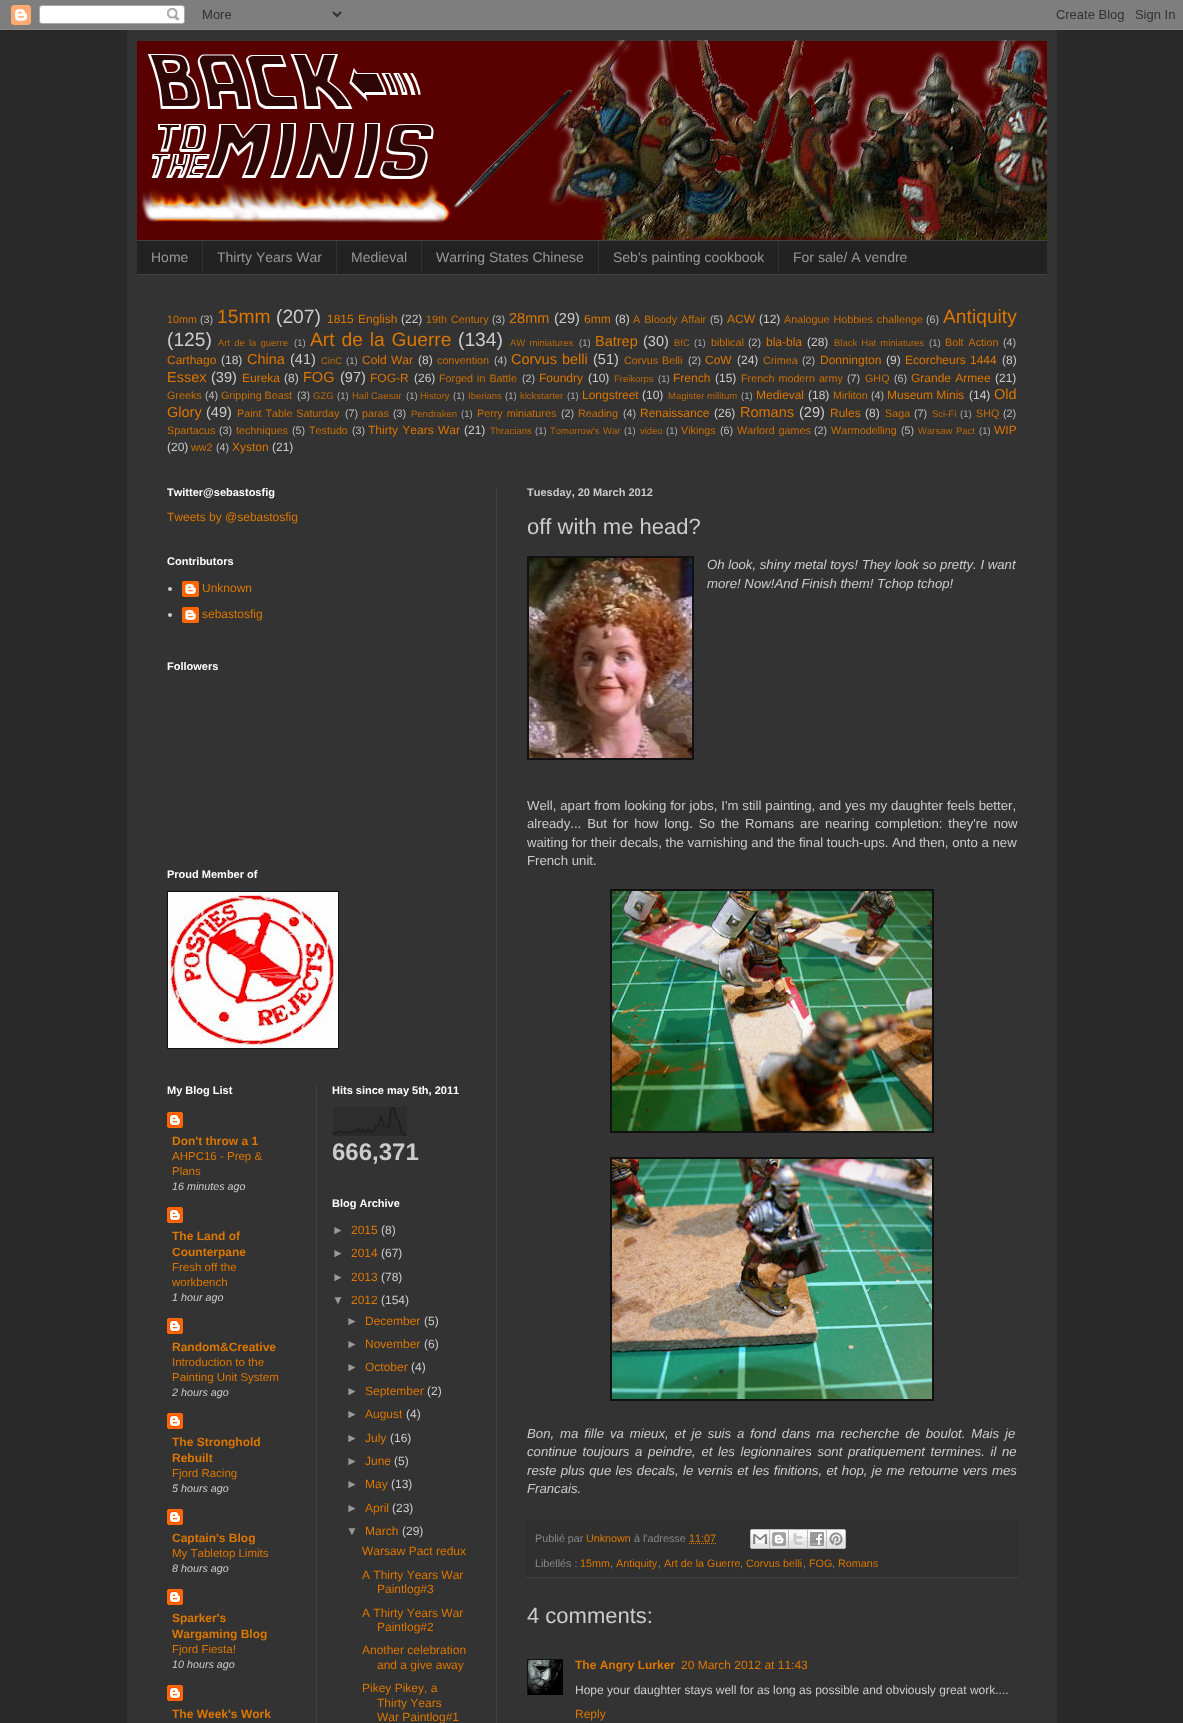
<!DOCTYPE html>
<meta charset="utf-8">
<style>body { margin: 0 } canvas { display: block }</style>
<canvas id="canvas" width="1183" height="1723"></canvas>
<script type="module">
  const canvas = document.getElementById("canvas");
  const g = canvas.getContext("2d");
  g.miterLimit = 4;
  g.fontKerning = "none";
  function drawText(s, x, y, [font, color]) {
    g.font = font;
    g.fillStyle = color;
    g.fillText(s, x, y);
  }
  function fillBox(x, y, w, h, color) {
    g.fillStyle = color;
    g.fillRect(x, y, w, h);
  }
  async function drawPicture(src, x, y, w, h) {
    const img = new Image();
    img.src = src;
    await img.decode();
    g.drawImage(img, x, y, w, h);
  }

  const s1 = ["14px Liberation Sans", "#999999"];
  const s2 = ["10.75px Liberation Sans", "#CC7005"];
  const s3 = ["10.75px Liberation Sans", "#BDBDBD"];
  const s4 = ["19.25px Liberation Sans", "#DD7700"];
  const s5 = ["19.25px Liberation Sans", "#CCCCCC"];
  const s6 = ["12px Liberation Sans", "#DD7700"];
  const s7 = ["12px Liberation Sans", "#CCCCCC"];
  const s8 = ["14.5px Liberation Sans", "#DD7700"];
  const s9 = ["14.5px Liberation Sans", "#CCCCCC"];
  const s10 = ["9.5px Liberation Sans", "#BB690A"];
  const s11 = ["9.5px Liberation Sans", "#ADADAD"];
  const s12 = ["bold 11px Liberation Sans", "#FFFFFF"];
  const s13 = ["bold 12px Liberation Sans", "#DD7700"];
  const s14 = ["11.5px Liberation Sans", "#DD7700"];
  const s15 = ["italic 10.75px Liberation Sans", "#CCCCCC"];
  const s16 = ["bold 24px Liberation Sans", "#CCCCCC"];
  const s17 = ["12px Liberation Sans", "#999999"];
  const s18 = ["bold 11px Liberation Sans", "#CCCCCC"];
  const s19 = ["22px Liberation Sans", "#CCCCCC"];
  const s20 = ["italic 13.2px Liberation Sans", "#CCCCCC"];
  const s21 = ["13.2px Liberation Sans", "#CCCCCC"];
  const s22 = ["10.75px Liberation Sans", "#888888"];
  const s23 = ["10.75px Liberation Sans", "#DD7700"];

  fillBox(0, 0, 1183, 1723, "#292929");
  await drawPicture("pic1.png", 0, 0, 1183, 30);
  fillBox(127, 30, 930, 1693, "#333333");
  await drawPicture("pic2.png", 137, 40, 910, 200);
  fillBox(137, 241, 910, 33, "#222222");
  fillBox(137, 240, 910, 1, "#404040");
  fillBox(137, 274, 910, 1, "#404040");
  drawText("Home", 151, 262, s1);
  fillBox(202, 241, 1, 33, "#333333");
  drawText("Thirty Years War", 217, 262, s1);
  fillBox(336, 241, 1, 33, "#333333");
  drawText("Medieval", 351, 262, s1);
  fillBox(421, 241, 1, 33, "#333333");
  drawText("Warring States Chinese", 436, 262, s1);
  fillBox(598, 241, 1, 33, "#333333");
  drawText("Seb's painting cookbook", 613, 262, s1);
  fillBox(778, 241, 1, 33, "#333333");
  drawText("For sale/ A vendre", 793, 262, s1);
  drawText("10mm", 167, 323, s2);
  drawText("(3)", 200, 323, s3);
  drawText("15mm", 217, 323, s4);
  drawText("(207)", 276, 323, s5);
  g.wordSpacing = "1px";
  drawText("1815 English", 327, 323, s6);
  g.wordSpacing = "0px";
  drawText("(22)", 401, 323, s7);
  g.wordSpacing = "1px";
  drawText("19th Century", 426, 323, s2);
  g.wordSpacing = "0px";
  drawText("(3)", 492, 323, s3);
  drawText("28mm", 509, 323, s8);
  drawText("(29)", 554, 323, s9);
  drawText("6mm", 584, 323, s6);
  drawText("(8)", 615, 323, s7);
  g.wordSpacing = "1px";
  drawText("A Bloody Affair", 633, 323, s2);
  g.wordSpacing = "0px";
  drawText("(5)", 710, 323, s3);
  drawText("ACW", 727, 323, s6);
  drawText("(12)", 759, 323, s7);
  g.wordSpacing = "1px";
  drawText("Analogue Hobbies challenge", 784, 323, s2);
  g.wordSpacing = "0px";
  drawText("(6)", 926, 323, s3);
  drawText("Antiquity", 943, 323, s4);
  drawText("(125)", 167, 346, s5);
  g.wordSpacing = "1.5px";
  drawText("Art de la guerre", 218, 346, s10);
  g.wordSpacing = "0px";
  drawText("(1)", 294, 346, s11);
  g.wordSpacing = "1.5px";
  drawText("Art de la Guerre", 310, 346, s4);
  g.wordSpacing = "0px";
  drawText("(134)", 458, 346, s5);
  g.wordSpacing = "1.5px";
  drawText("AW miniatures", 510, 346, s10);
  g.wordSpacing = "0px";
  drawText("(1)", 579, 346, s11);
  drawText("Batrep", 595, 346, s8);
  drawText("(30)", 643, 346, s9);
  drawText("BfC", 674, 346, s10);
  drawText("(1)", 694, 346, s11);
  drawText("biblical", 711, 346, s2);
  drawText("(2)", 748, 346, s3);
  drawText("bla-bla", 766, 346, s6);
  drawText("(28)", 807, 346, s7);
  g.wordSpacing = "1.5px";
  drawText("Black Hat miniatures", 834, 346, s10);
  g.wordSpacing = "0px";
  drawText("(1)", 929, 346, s11);
  g.wordSpacing = "2px";
  drawText("Bolt Action", 945, 346, s2);
  g.wordSpacing = "0px";
  drawText("(4)", 1003, 346, s3);
  drawText("Carthago", 167, 364, s6);
  drawText("(18)", 221, 364, s7);
  drawText("China", 247, 364, s8);
  drawText("(41)", 290, 364, s9);
  drawText("CinC", 321, 364, s10);
  drawText("(1)", 346, 364, s11);
  g.wordSpacing = "1px";
  drawText("Cold War", 362, 364, s6);
  g.wordSpacing = "0px";
  drawText("(8)", 418, 364, s7);
  drawText("convention", 437, 364, s2);
  drawText("(4)", 494, 364, s3);
  g.wordSpacing = "1px";
  drawText("Corvus belli", 511, 364, s8);
  g.wordSpacing = "0px";
  drawText("(51)", 593, 364, s9);
  g.wordSpacing = "1px";
  drawText("Corvus Belli", 624, 364, s2);
  g.wordSpacing = "0px";
  drawText("(2)", 688, 364, s3);
  drawText("CoW", 705, 364, s6);
  drawText("(24)", 737, 364, s7);
  drawText("Crimea", 763, 364, s2);
  drawText("(2)", 802, 364, s3);
  drawText("Donnington", 820, 364, s6);
  drawText("(9)", 886, 364, s7);
  g.wordSpacing = "1px";
  drawText("Ecorcheurs 1444", 905, 364, s6);
  g.wordSpacing = "0px";
  drawText("(8)", 1002, 364, s7);
  drawText("Essex", 167, 382, s8);
  drawText("(39)", 211, 382, s9);
  drawText("Eureka", 242, 382, s6);
  drawText("(8)", 284, 382, s7);
  drawText("FOG", 303, 382, s8);
  drawText("(97)", 340, 382, s9);
  drawText("FOG-R", 370, 382, s6);
  drawText("(26)", 414, 382, s7);
  g.wordSpacing = "1px";
  drawText("Forged in Battle", 439, 382, s2);
  g.wordSpacing = "0px";
  drawText("(2)", 522, 382, s3);
  drawText("Foundry", 539, 382, s6);
  drawText("(10)", 588, 382, s7);
  drawText("Freikorps", 614, 382, s10);
  drawText("(1)", 658, 382, s11);
  drawText("French", 673, 382, s6);
  drawText("(15)", 715, 382, s7);
  g.wordSpacing = "1px";
  drawText("French modern army", 741, 382, s2);
  g.wordSpacing = "0px";
  drawText("(7)", 847, 382, s3);
  drawText("GHQ", 865, 382, s2);
  drawText("(6)", 894, 382, s3);
  g.wordSpacing = "1px";
  drawText("Grande Armee", 911, 382, s6);
  g.wordSpacing = "0px";
  drawText("(21)", 995, 382, s7);
  drawText("Greeks", 167, 399, s2);
  drawText("(4)", 205, 399, s3);
  drawText("Gripping Beast", 221, 399, s2);
  drawText("(3)", 297, 399, s3);
  drawText("GZG", 313, 399, s10);
  drawText("(1)", 337, 399, s11);
  drawText("Hail Caesar", 352, 399, s10);
  drawText("(1)", 406, 399, s11);
  drawText("History", 420, 399, s10);
  drawText("(1)", 453, 399, s11);
  drawText("Iberians", 468, 399, s10);
  drawText("(1)", 505, 399, s11);
  drawText("kickstarter", 520, 399, s10);
  drawText("(1)", 567, 399, s11);
  drawText("Longstreet", 582, 399, s6);
  drawText("(10)", 642, 399, s7);
  drawText("Magister militum", 668, 399, s10);
  drawText("(1)", 741, 399, s11);
  drawText("Medieval", 756, 399, s6);
  drawText("(18)", 808, 399, s7);
  drawText("Mirliton", 833, 399, s2);
  drawText("(4)", 871, 399, s3);
  drawText("Museum Minis", 887, 399, s6);
  drawText("(14)", 969, 399, s7);
  drawText("Old", 994, 399, s8);
  drawText("Glory", 167, 417, s8);
  drawText("(49)", 206, 417, s9);
  g.wordSpacing = "1px";
  drawText("Paint Table Saturday", 237, 417, s2);
  g.wordSpacing = "0px";
  drawText("(7)", 345, 417, s3);
  drawText("paras", 362, 417, s2);
  drawText("(3)", 393, 417, s3);
  drawText("Pendraken", 411, 417, s10);
  drawText("(1)", 461, 417, s11);
  g.wordSpacing = "1px";
  drawText("Perry miniatures", 477, 417, s2);
  g.wordSpacing = "0px";
  drawText("(2)", 561, 417, s3);
  drawText("Reading", 578, 417, s2);
  drawText("(4)", 623, 417, s3);
  drawText("Renaissance", 640, 417, s6);
  drawText("(26)", 714, 417, s7);
  drawText("Romans", 740, 417, s8);
  drawText("(29)", 799, 417, s9);
  drawText("Rules", 830, 417, s6);
  drawText("(8)", 865, 417, s7);
  drawText("Saga", 885, 417, s2);
  drawText("(7)", 914, 417, s3);
  drawText("Sci-Fi", 932, 417, s10);
  drawText("(1)", 960, 417, s11);
  drawText("SHQ", 976, 417, s2);
  drawText("(2)", 1003, 417, s3);
  drawText("Spartacus", 167, 434, s2);
  drawText("(3)", 219, 434, s3);
  drawText("techniques", 236, 434, s2);
  drawText("(5)", 292, 434, s3);
  drawText("Testudo", 309, 434, s2);
  drawText("(3)", 352, 434, s3);
  g.wordSpacing = "1px";
  drawText("Thirty Years War", 368, 434, s6);
  g.wordSpacing = "0px";
  drawText("(21)", 464, 434, s7);
  drawText("Thracians", 490, 434, s10);
  drawText("(1)", 535, 434, s11);
  g.wordSpacing = "1px";
  drawText("Tomorrow's War", 550, 434, s10);
  g.wordSpacing = "0px";
  drawText("(1)", 624, 434, s11);
  drawText("video", 640, 434, s10);
  drawText("(1)", 666, 434, s11);
  drawText("Vikings", 681, 434, s2);
  drawText("(6)", 720, 434, s3);
  g.wordSpacing = "1px";
  drawText("Warlord games", 737, 434, s2);
  g.wordSpacing = "0px";
  drawText("(2)", 814, 434, s3);
  drawText("Warmodelling", 831, 434, s2);
  drawText("(5)", 901, 434, s3);
  g.wordSpacing = "1px";
  drawText("Warsaw Pact", 918, 434, s10);
  g.wordSpacing = "0px";
  drawText("(1)", 979, 434, s11);
  drawText("WIP", 994, 434, s6);
  drawText("(20)", 167, 451, s7);
  drawText("ww2", 191, 451, s2);
  drawText("(4)", 216, 451, s3);
  drawText("Xyston", 232, 451, s6);
  drawText("(21)", 272, 451, s7);
  fillBox(496, 486, 1, 1237, "#404040");
  drawText("Twitter@sebastosfig", 167, 496, s12);
  drawText("Tweets by @sebastosfig", 167, 521, s6);
  drawText("Contributors", 167, 565, s12);
  g.fillStyle = "#CCCCCC";
  g.beginPath();
  g.arc(170, 589, 2, 0, Math.PI * 2);
  g.fill();
  await drawPicture("pic3.png", 182, 581, 17, 16);
  drawText("Unknown", 202, 592, s6);
  g.fillStyle = "#CCCCCC";
  g.beginPath();
  g.arc(170, 615, 2, 0, Math.PI * 2);
  g.fill();
  await drawPicture("pic3.png", 182, 607, 17, 16);
  drawText("sebastosfig", 202, 618, s6);
  drawText("Followers", 167, 670, s12);
  drawText("Proud Member of", 167, 878, s12);
  fillBox(167, 891, 172, 158, "#111111");
  await drawPicture("pic4.png", 168, 892, 170, 156);
  drawText("My Blog List", 167, 1094, s12);
  await drawPicture("pic5.png", 167, 1112, 16, 16);
  drawText("Don't throw a 1", 172, 1145, s13);
  drawText("AHPC16 - Prep &", 172, 1160, s14);
  drawText("Plans", 172, 1175, s14);
  drawText("16 minutes ago", 172, 1190, s15);
  await drawPicture("pic5.png", 167, 1207, 16, 16);
  drawText("The Land of", 172, 1240, s13);
  drawText("Counterpane", 172, 1256, s13);
  drawText("Fresh off the", 172, 1271, s14);
  drawText("workbench", 172, 1286, s14);
  drawText("1 hour ago", 172, 1301, s15);
  await drawPicture("pic5.png", 167, 1318, 16, 16);
  drawText("Random&Creative", 172, 1351, s13);
  drawText("Introduction to the", 172, 1366, s14);
  drawText("Painting Unit System", 172, 1381, s14);
  drawText("2 hours ago", 172, 1396, s15);
  await drawPicture("pic5.png", 167, 1413, 16, 16);
  drawText("The Stronghold", 172, 1446, s13);
  drawText("Rebuilt", 172, 1462, s13);
  drawText("Fjord Racing", 172, 1477, s14);
  drawText("5 hours ago", 172, 1492, s15);
  await drawPicture("pic5.png", 167, 1509, 16, 16);
  drawText("Captain's Blog", 172, 1542, s13);
  drawText("My Tabletop Limits", 172, 1557, s14);
  drawText("8 hours ago", 172, 1572, s15);
  await drawPicture("pic5.png", 167, 1589, 16, 16);
  drawText("Sparker's", 172, 1622, s13);
  drawText("Wargaming Blog", 172, 1638, s13);
  drawText("Fjord Fiesta!", 172, 1653, s14);
  drawText("10 hours ago", 172, 1668, s15);
  await drawPicture("pic5.png", 167, 1685, 16, 16);
  drawText("The Week's Work", 172, 1718, s13);
  fillBox(316, 1084, 1, 639, "#404040");
  drawText("Hits since may 5th, 2011", 332, 1094, s12);
  await drawPicture("pic6.png", 332, 1107, 75, 29);
  drawText("666,371", 332, 1160, s16);
  drawText("Blog Archive", 332, 1207, s12);
  drawText("►", 332, 1234, s17);
  drawText("2015", 351, 1234, s6);
  drawText("(8)", 381, 1234, s7);
  drawText("►", 332, 1257, s17);
  drawText("2014", 351, 1257, s6);
  drawText("(67)", 381, 1257, s7);
  drawText("►", 332, 1281, s17);
  drawText("2013", 351, 1281, s6);
  drawText("(78)", 381, 1281, s7);
  drawText("▼", 332, 1304, s17);
  drawText("2012", 351, 1304, s6);
  drawText("(154)", 381, 1304, s7);
  drawText("►", 346, 1325, s17);
  drawText("December", 365, 1325, s6);
  drawText("(5)", 424, 1325, s7);
  drawText("►", 346, 1348, s17);
  drawText("November", 365, 1348, s6);
  drawText("(6)", 424, 1348, s7);
  drawText("►", 346, 1371, s17);
  drawText("October", 365, 1371, s6);
  drawText("(4)", 411, 1371, s7);
  drawText("►", 346, 1395, s17);
  drawText("September", 365, 1395, s6);
  drawText("(2)", 427, 1395, s7);
  drawText("►", 346, 1418, s17);
  drawText("August", 365, 1418, s6);
  drawText("(4)", 406, 1418, s7);
  drawText("►", 346, 1442, s17);
  drawText("July", 365, 1442, s6);
  drawText("(16)", 390, 1442, s7);
  drawText("►", 346, 1465, s17);
  drawText("June", 365, 1465, s6);
  drawText("(5)", 394, 1465, s7);
  drawText("►", 346, 1488, s17);
  drawText("May", 365, 1488, s6);
  drawText("(13)", 391, 1488, s7);
  drawText("►", 346, 1512, s17);
  drawText("April", 365, 1512, s6);
  drawText("(23)", 392, 1512, s7);
  drawText("▼", 346, 1535, s17);
  drawText("March", 365, 1535, s6);
  drawText("(29)", 402, 1535, s7);
  drawText("Warsaw Pact redux", 362, 1555, s6);
  drawText("A Thirty Years War", 362, 1579, s6);
  drawText("Paintlog#3", 377, 1593, s6);
  drawText("A Thirty Years War", 362, 1617, s6);
  drawText("Paintlog#2", 377, 1631, s6);
  drawText("Another celebration", 362, 1654, s6);
  drawText("and a give away", 377, 1669, s6);
  drawText("Pikey Pikey, a", 362, 1692, s6);
  drawText("Thirty Years", 377, 1707, s6);
  drawText("War Paintlog#1", 377, 1721, s6);
  drawText("Tuesday, 20 March 2012", 527, 496, s18);
  drawText("off with me head?", 527, 534, s19);
  fillBox(527, 556, 167, 204, "#111111");
  await drawPicture("pic7.png", 529, 558, 163, 200);
  drawText("Oh look, shiny metal toys! They look so pretty. I want", 707, 569, s20);
  drawText("more! Now!And Finish them! Tchop tchop!", 707, 588, s20);
  g.wordSpacing = "0.25px";
  drawText("Well, apart from looking for jobs, I'm still painting, and yes my daughter feels better,", 527, 810, s21);
  g.wordSpacing = "2.25px";
  drawText("already... But for how long. So the Romans are nearing completion: they're now", 527, 828, s21);
  g.wordSpacing = "0px";
  drawText("waiting for their decals, the varnishing and the final touch-ups. And then, onto a new", 527, 847, s21);
  drawText("French unit.", 527, 865, s21);
  fillBox(610, 889, 324, 244, "#111111");
  await drawPicture("pic8.png", 612, 891, 320, 240);
  fillBox(610, 1157, 324, 244, "#111111");
  await drawPicture("pic9.png", 612, 1159, 320, 240);
  g.wordSpacing = "2.25px";
  drawText("Bon, ma fille va mieux, et je suis a fond dans ma recherche de boulot. Mais je", 527, 1438, s20);
  g.wordSpacing = "2px";
  drawText("continue toujours a peindre, et les legionnaires sont pratiquement termines. il ne", 527, 1456, s20);
  g.wordSpacing = "0.7px";
  drawText("reste plus que les decals, le vernis et les finitions, et hop, je me retourne vers mes", 527, 1475, s20);
  g.wordSpacing = "0px";
  drawText("Francais.", 527, 1493, s20);
  fillBox(525, 1519, 494, 58, "#303030");
  fillBox(525, 1577, 494, 1, "#444444");
  drawText("Publié par", 535, 1542, s22);
  drawText("Unknown", 586, 1542, s23);
  drawText("à l'adresse", 634, 1542, s22);
  drawText("11:07", 689, 1542, s23);
  g.beginPath();
  g.moveTo(689, 1543.5);
  g.lineTo(716, 1543.5);
  g.strokeStyle = "#DD7700";
  g.setLineDash([1, 1]);
  g.stroke();
  await drawPicture("pic10.png", 750, 1529, 20, 20);
  await drawPicture("pic11.png", 770, 1529, 19, 20);
  await drawPicture("pic12.png", 789, 1529, 19, 20);
  await drawPicture("pic13.png", 808, 1529, 19, 20);
  await drawPicture("pic14.png", 827, 1529, 19, 20);
  drawText("Libellés :", 535, 1567, s22);
  drawText("15mm", 580, 1567, s23);
  drawText(",", 610, 1567, s22);
  drawText("Antiquity", 616, 1567, s23);
  drawText(",", 658, 1567, s22);
  drawText("Art de la Guerre", 664, 1567, s23);
  drawText(",", 740, 1567, s22);
  drawText("Corvus belli", 746, 1567, s23);
  drawText(",", 803, 1567, s22);
  drawText("FOG", 809, 1567, s23);
  drawText(",", 832, 1567, s22);
  drawText("Romans", 838, 1567, s23);
  drawText("4 comments:", 527, 1623, s19);
  g.save();
  g.beginPath();
  g.rect(527, 1659, 36, 36);
  g.clip();
  g.strokeStyle = "#111111";
  g.setLineDash([]);
  g.strokeRect(527.5, 1659.5, 37, 37);
  g.restore();
  await drawPicture("pic15.png", 528, 1660, 35, 35);
  drawText("The Angry Lurker", 575, 1669, s13);
  drawText("20 March 2012 at 11:43", 681, 1669, s6);
  drawText("Hope your daughter stays well for as long as possible and obviously great work....", 575, 1694, s7);
  drawText("Reply", 575, 1718, s6);
</script>
